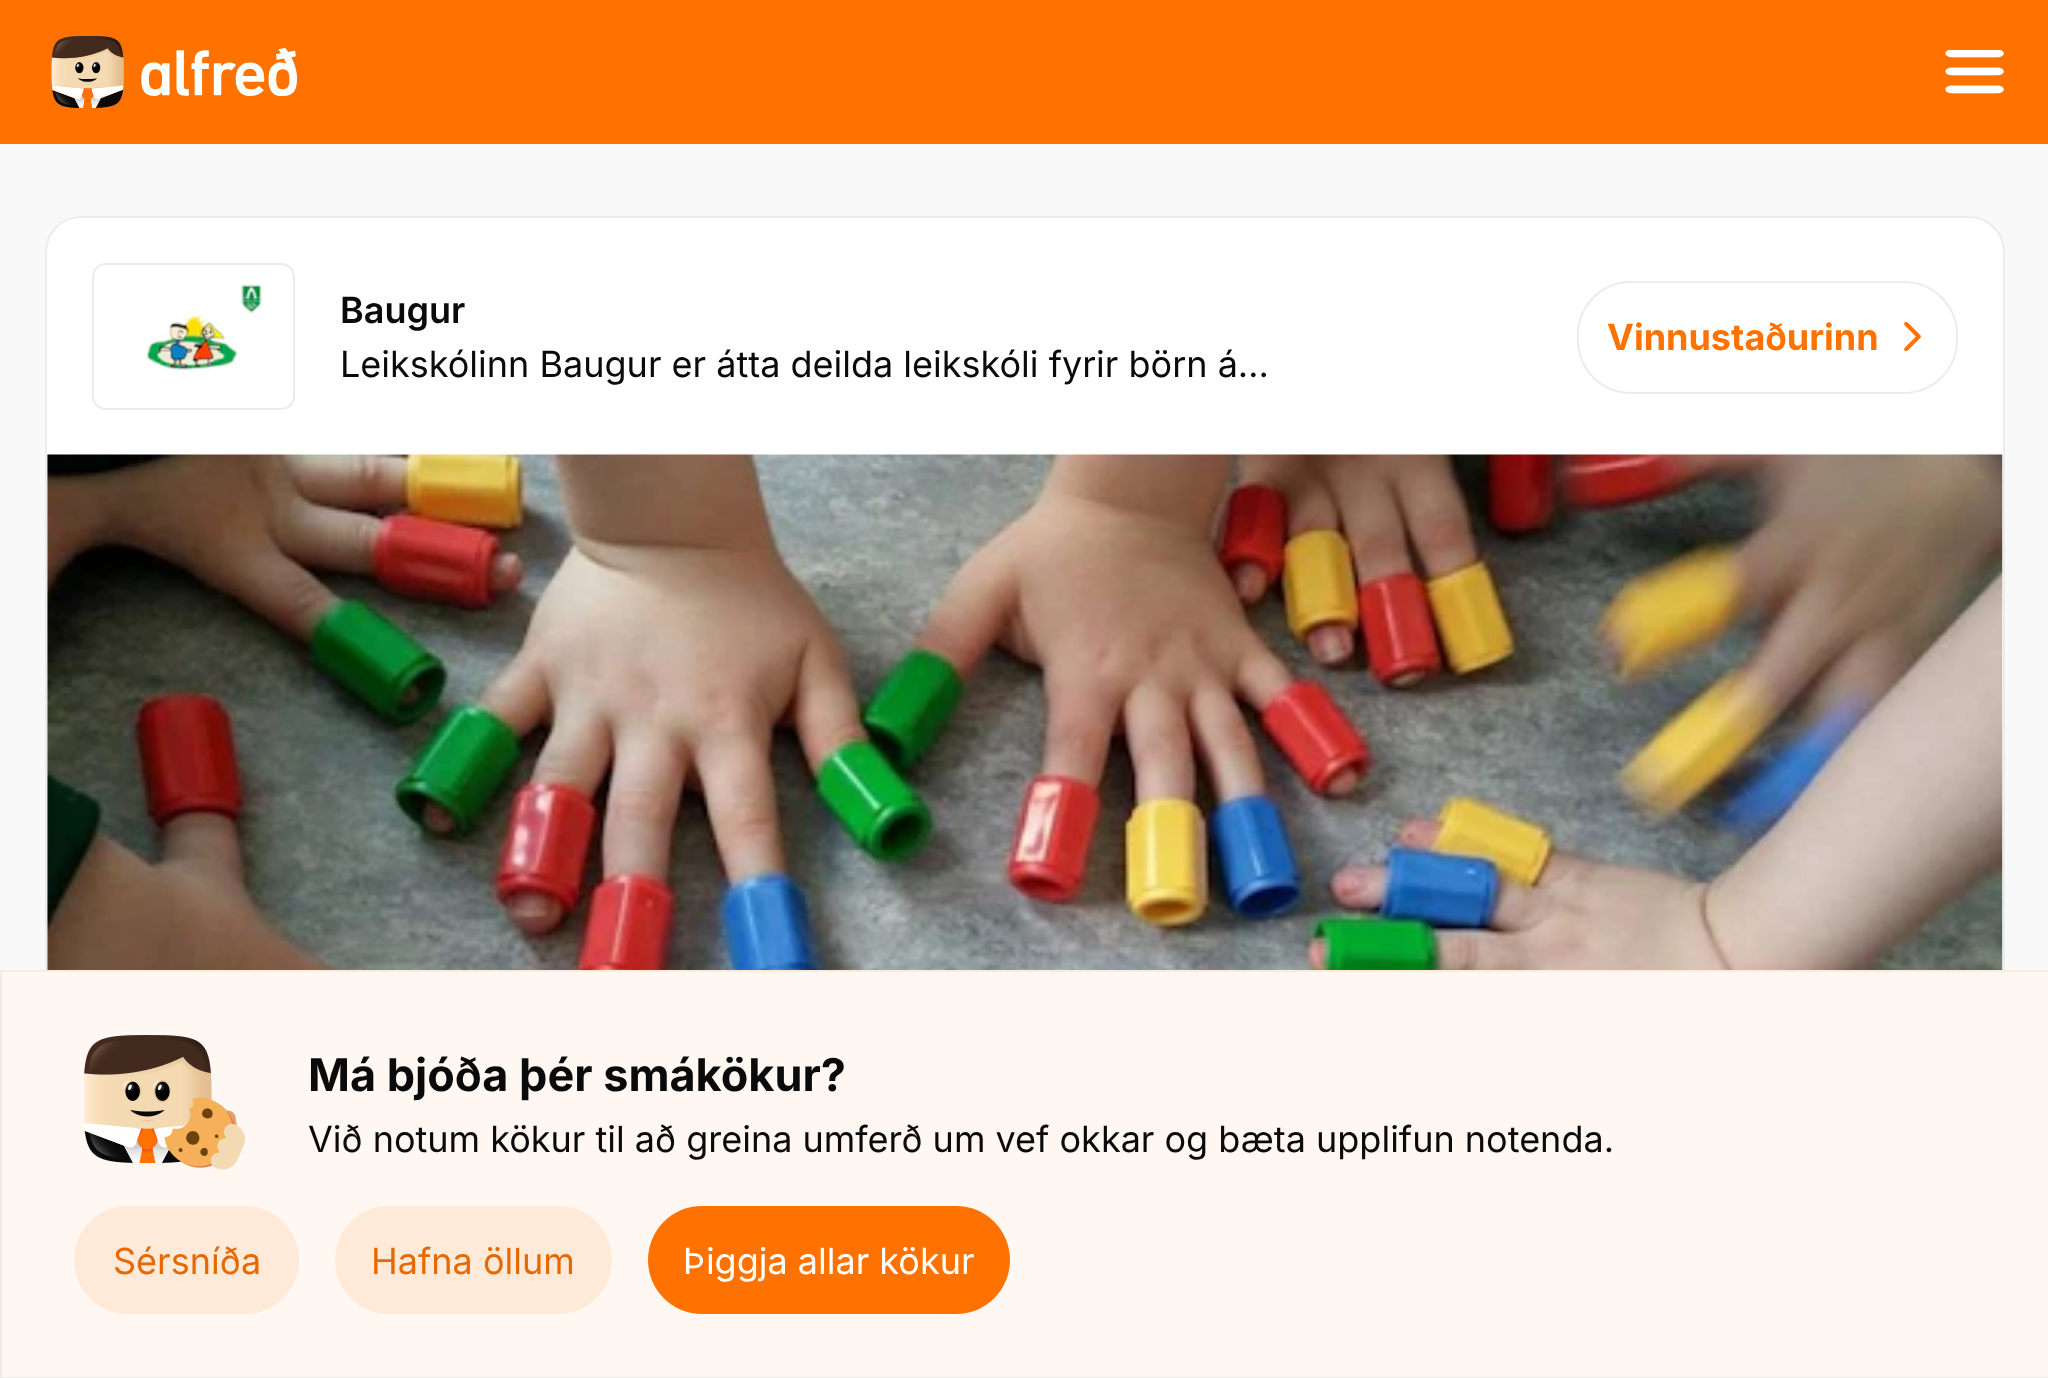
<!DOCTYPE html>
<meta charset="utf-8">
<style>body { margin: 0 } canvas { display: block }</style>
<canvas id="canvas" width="2048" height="1378"></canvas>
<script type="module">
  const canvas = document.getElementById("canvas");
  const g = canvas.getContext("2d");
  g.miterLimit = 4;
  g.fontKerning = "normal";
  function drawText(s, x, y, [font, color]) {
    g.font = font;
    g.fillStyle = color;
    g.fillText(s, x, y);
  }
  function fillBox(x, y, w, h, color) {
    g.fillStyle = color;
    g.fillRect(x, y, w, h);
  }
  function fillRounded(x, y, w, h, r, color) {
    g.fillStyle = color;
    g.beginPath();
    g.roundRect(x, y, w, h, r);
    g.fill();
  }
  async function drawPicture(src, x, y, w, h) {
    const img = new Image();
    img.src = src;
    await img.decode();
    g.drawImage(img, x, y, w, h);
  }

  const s1 = ["600 36px Inter", "#0A0A0A"];
  const s2 = ["36px Inter", "#0A0A0A"];
  const s3 = ["bold 36px Inter", "#FF7200"];
  const s4 = ["bold 45px Inter", "#0A0A0A"];
  const s5 = ["36px Inter", "#E66800"];
  const s6 = ["36px Inter", "#FFFFFF"];

  fillBox(0, 0, 2048, 1378, "#F9F9F9");
  fillBox(0, 0, 2048, 144, "#FF7200");
  await drawPicture("pic1.png", 51, 36, 246, 72);
  await drawPicture("pic2.png", 1945, 50, 59, 44);
  g.fillStyle = "#FFFFFF";
  g.beginPath();
  g.roundRect(46, 217, 1958, 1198, 35);
  g.fill();
  g.strokeStyle = "#ECECEC";
  g.lineWidth = 2;
  g.stroke();
  g.beginPath();
  g.roundRect(93, 264, 201, 145, 13);
  g.stroke();
  await drawPicture("pic3.png", 145, 283, 119, 94);
  drawText("Baugur", 340, 323, s1);
  drawText("Leikskólinn Baugur er átta deilda leikskóli fyrir börn á…", 340, 377, s2);
  g.beginPath();
  g.roundRect(1578, 282, 379, 111, 53);
  g.stroke();
  drawText("Vinnustaðurinn", 1607, 350, s3);
  await drawPicture("pic4.png", 1904, 322, 17, 30);
  await drawPicture("pic5.png", 47, 454, 1956, 516);
  fillBox(2, 972, 2046, 405, "#FFF8F2");
  fillBox(0, 970, 2048, 2, "#FFEAD9");
  fillBox(0, 1377, 2048, 1, "#ECECEC");
  fillBox(0, 970, 2, 408, "#ECECEC");
  await drawPicture("pic6.png", 84, 1035, 161, 135);
  drawText("Má bjóða þér smákökur?", 308, 1091, s4);
  drawText("Við notum kökur til að greina umferð um vef okkar og bæta upplifun notenda.", 308, 1152, s2);
  fillRounded(74, 1206, 225, 108, 54, "#FFEAD9");
  drawText("Sérsníða", 113, 1274, s5);
  fillRounded(335, 1206, 277, 108, 54, "#FFEAD9");
  drawText("Hafna öllum", 371, 1274, s5);
  fillRounded(648, 1206, 362, 108, 54, "#FF7200");
  drawText("Þiggja allar kökur", 683, 1274, s6);
</script>
